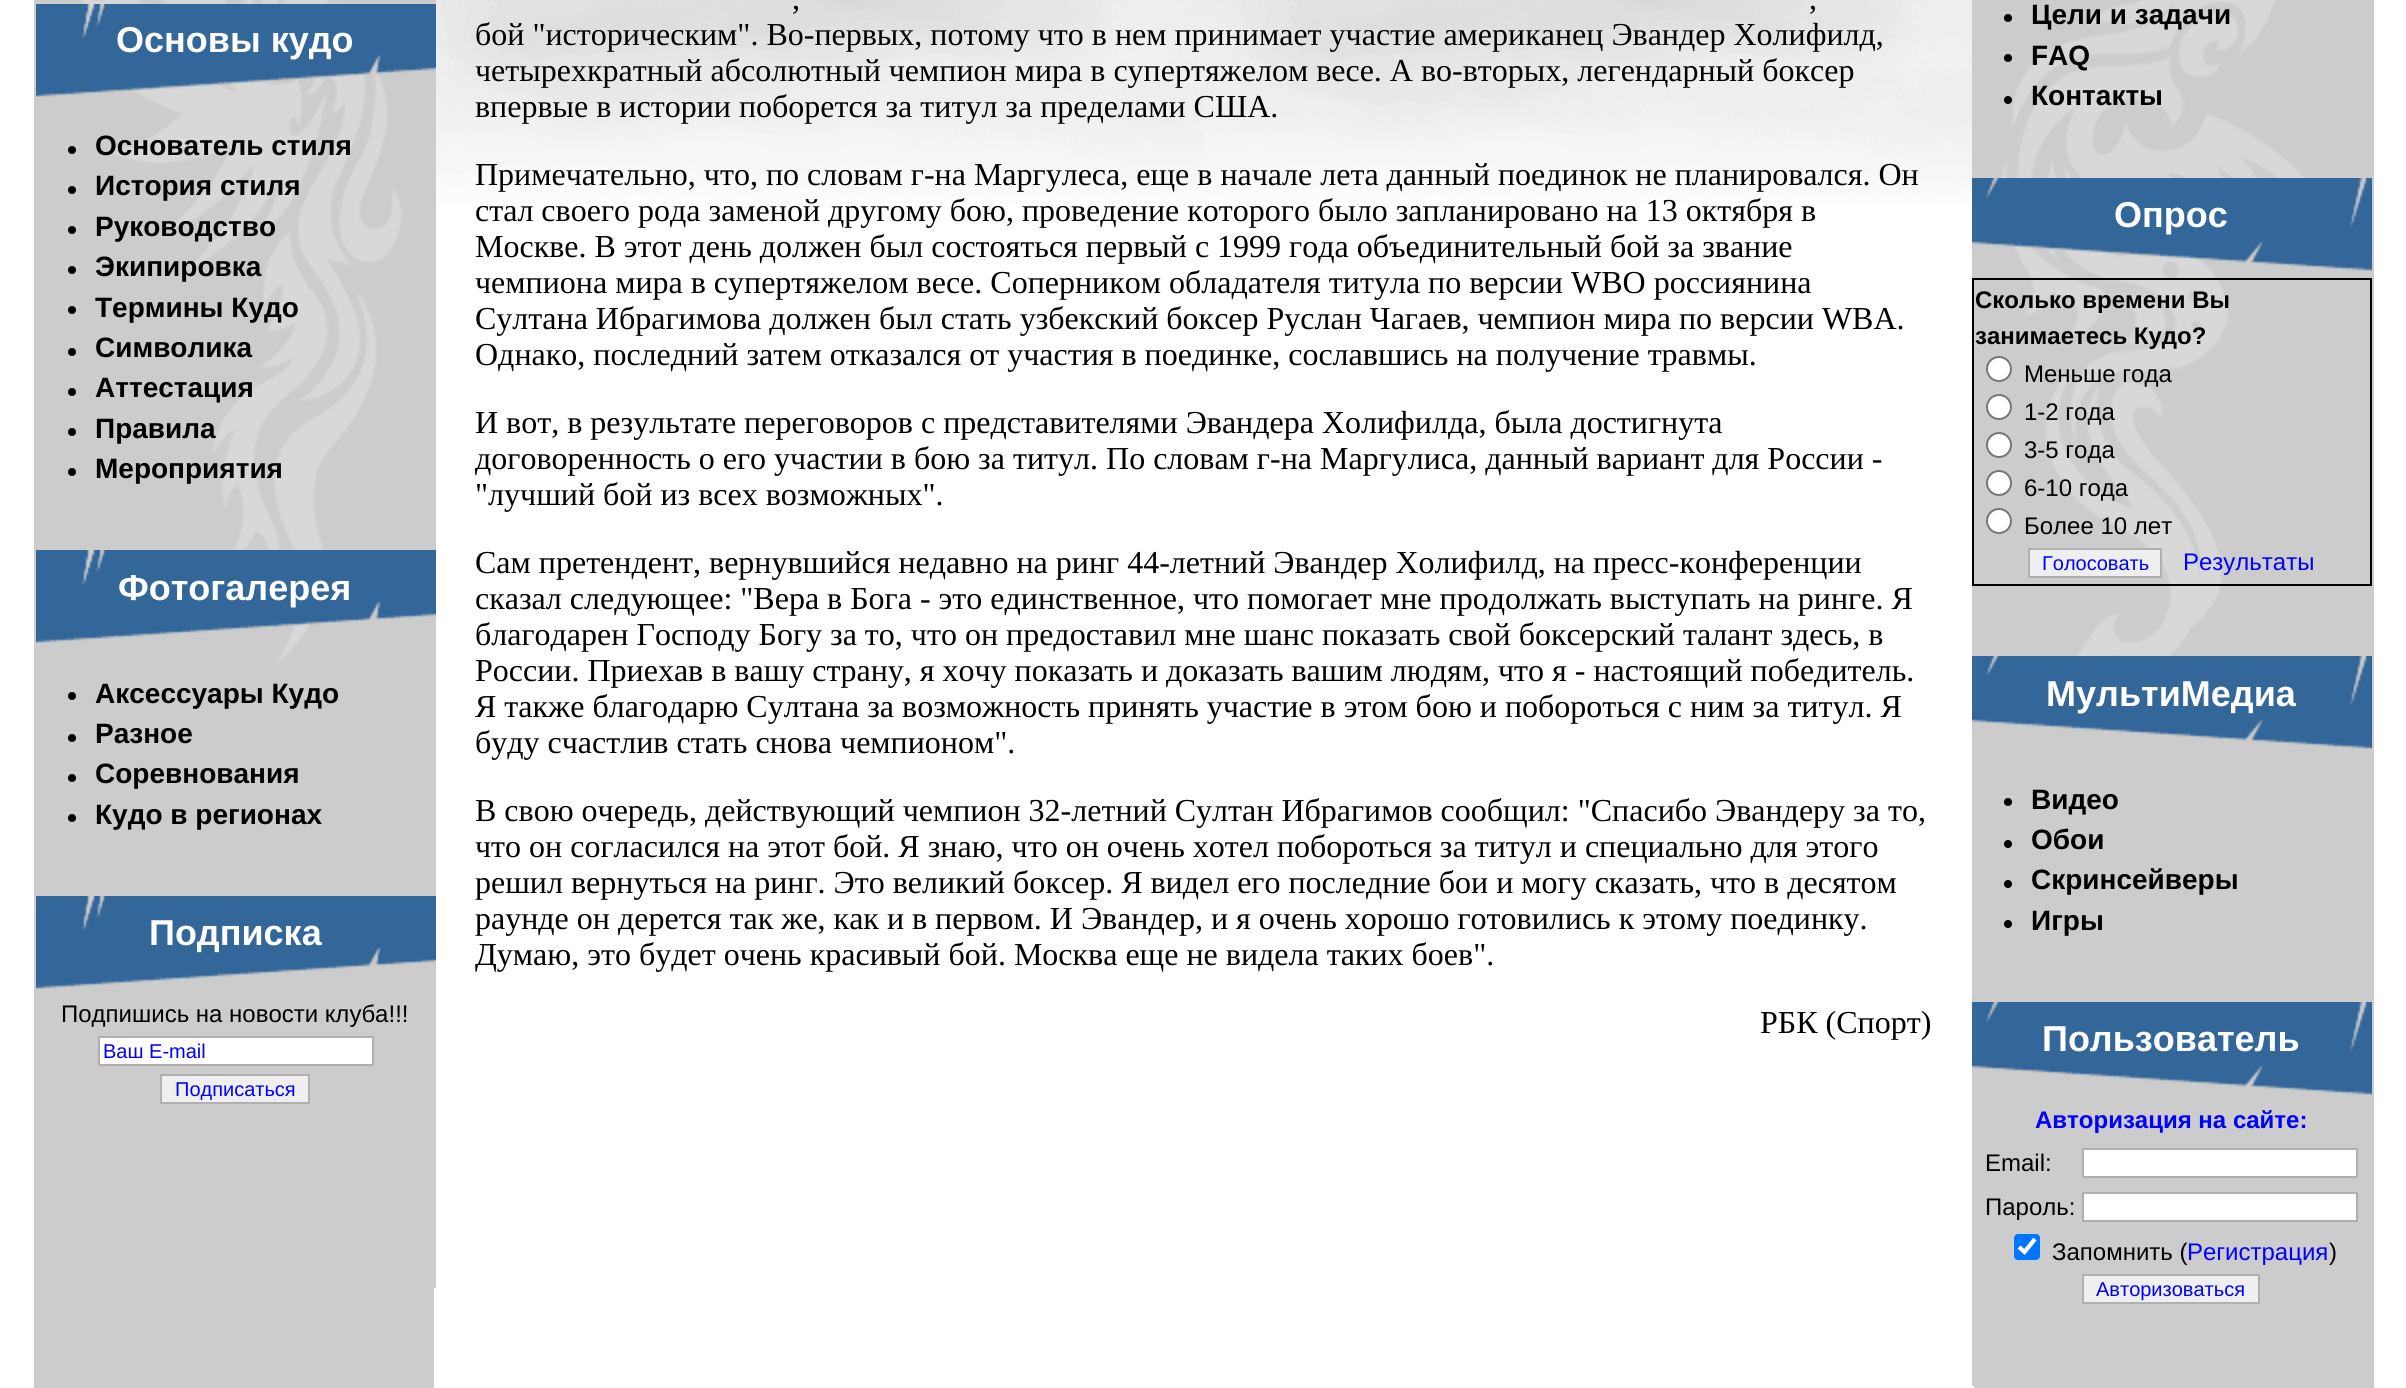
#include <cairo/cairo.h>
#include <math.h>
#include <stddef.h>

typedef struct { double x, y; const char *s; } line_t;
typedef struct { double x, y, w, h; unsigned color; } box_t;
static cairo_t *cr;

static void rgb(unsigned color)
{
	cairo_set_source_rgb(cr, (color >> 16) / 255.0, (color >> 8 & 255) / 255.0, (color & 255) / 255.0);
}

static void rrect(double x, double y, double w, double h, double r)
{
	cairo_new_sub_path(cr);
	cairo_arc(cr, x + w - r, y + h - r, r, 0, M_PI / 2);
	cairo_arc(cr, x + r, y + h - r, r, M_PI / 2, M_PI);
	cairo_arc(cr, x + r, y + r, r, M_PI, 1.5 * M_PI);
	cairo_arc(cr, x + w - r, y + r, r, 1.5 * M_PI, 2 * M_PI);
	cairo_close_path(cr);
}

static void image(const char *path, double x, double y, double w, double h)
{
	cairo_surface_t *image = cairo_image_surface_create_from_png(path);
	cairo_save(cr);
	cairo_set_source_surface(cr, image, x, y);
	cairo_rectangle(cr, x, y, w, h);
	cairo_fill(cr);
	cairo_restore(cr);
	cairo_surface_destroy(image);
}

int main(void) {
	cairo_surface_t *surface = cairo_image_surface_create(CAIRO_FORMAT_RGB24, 2406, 1388);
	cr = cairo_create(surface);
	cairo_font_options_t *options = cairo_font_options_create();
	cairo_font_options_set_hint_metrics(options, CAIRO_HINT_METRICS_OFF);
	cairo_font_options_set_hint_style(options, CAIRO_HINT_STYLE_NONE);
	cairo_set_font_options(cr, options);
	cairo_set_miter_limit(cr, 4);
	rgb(0xffffff);
	cairo_paint(cr);
	image("img/1.png", 436, 0, 1536, 203);
	{
		static const box_t items[] = {
			{1974, 0, 400, 1388, 0xcccccc},
			{34, 0, 400, 1388, 0xcccccc},
			{434, 0, 2, 1288, 0xcccccc},
		};
		for (size_t i = 0; i < sizeof items / sizeof *items; i++) {
			rgb(items[i].color);
			cairo_rectangle(cr, items[i].x, items[i].y, items[i].w, items[i].h);
			cairo_fill(cr);
		}
	}
	image("img/2.png", 82, 0, 320, 664);
	image("img/3.png", 36, 4, 400, 93);
	rgb(0x000000);
	cairo_arc(cr, 72, 150, 4, 0, 2 * M_PI);
	cairo_fill(cr);
	cairo_arc(cr, 72, 190, 4, 0, 2 * M_PI);
	cairo_fill(cr);
	cairo_arc(cr, 72, 230, 4, 0, 2 * M_PI);
	cairo_fill(cr);
	cairo_arc(cr, 72, 270, 4, 0, 2 * M_PI);
	cairo_fill(cr);
	cairo_arc(cr, 72, 310, 4, 0, 2 * M_PI);
	cairo_fill(cr);
	cairo_arc(cr, 72, 352, 4, 0, 2 * M_PI);
	cairo_fill(cr);
	cairo_arc(cr, 72, 392, 4, 0, 2 * M_PI);
	cairo_fill(cr);
	cairo_arc(cr, 72, 432, 4, 0, 2 * M_PI);
	cairo_fill(cr);
	cairo_arc(cr, 72, 472, 4, 0, 2 * M_PI);
	cairo_fill(cr);
	image("img/4.png", 36, 550, 400, 93);
	cairo_arc(cr, 72, 696, 4, 0, 2 * M_PI);
	cairo_fill(cr);
	cairo_arc(cr, 72, 738, 4, 0, 2 * M_PI);
	cairo_fill(cr);
	cairo_arc(cr, 72, 778, 4, 0, 2 * M_PI);
	cairo_fill(cr);
	cairo_arc(cr, 72, 818, 4, 0, 2 * M_PI);
	cairo_fill(cr);
	image("img/5.png", 36, 896, 400, 93);
	rgb(0xffffff);
	cairo_rectangle(cr, 99, 1037, 274, 28);
	cairo_fill_preserve(cr);
	rgb(0xb0b0b0);
	cairo_stroke(cr);
	rgb(0xefefef);
	cairo_rectangle(cr, 161, 1075, 148, 28);
	cairo_fill_preserve(cr);
	rgb(0xb0b0b0);
	cairo_stroke(cr);
	rgb(0xcccccc);
	cairo_rectangle(cr, 1972, 0, 2, 1386);
	cairo_fill(cr);
	image("img/6.png", 2000, 0, 307, 656);
	rgb(0x000000);
	cairo_arc(cr, 2008, 18, 4, 0, 2 * M_PI);
	cairo_fill(cr);
	cairo_arc(cr, 2008, 58, 4, 0, 2 * M_PI);
	cairo_fill(cr);
	cairo_arc(cr, 2008, 100, 4, 0, 2 * M_PI);
	cairo_fill(cr);
	image("img/7.png", 1972, 178, 400, 93);
	{
		static const box_t items[] = {
			{1972, 278, 400, 2, 0x000000},
			{2370, 278, 2, 308, 0x000000},
			{1972, 584, 400, 2, 0x000000},
			{1972, 278, 2, 308, 0x000000},
		};
		for (size_t i = 0; i < sizeof items / sizeof *items; i++) {
			rgb(items[i].color);
			cairo_rectangle(cr, items[i].x, items[i].y, items[i].w, items[i].h);
			cairo_fill(cr);
		}
	}
	rgb(0xffffff);
	cairo_arc(cr, 1999, 369, 12, 0, 2 * M_PI);
	cairo_fill_preserve(cr);
	rgb(0x767676);
	cairo_stroke(cr);
	rgb(0xffffff);
	cairo_arc(cr, 1999, 407, 12, 0, 2 * M_PI);
	cairo_fill_preserve(cr);
	rgb(0x767676);
	cairo_stroke(cr);
	rgb(0xffffff);
	cairo_arc(cr, 1999, 445, 12, 0, 2 * M_PI);
	cairo_fill_preserve(cr);
	rgb(0x767676);
	cairo_stroke(cr);
	rgb(0xffffff);
	cairo_arc(cr, 1999, 483, 12, 0, 2 * M_PI);
	cairo_fill_preserve(cr);
	rgb(0x767676);
	cairo_stroke(cr);
	rgb(0xffffff);
	cairo_arc(cr, 1999, 521, 12, 0, 2 * M_PI);
	cairo_fill_preserve(cr);
	rgb(0x767676);
	cairo_stroke(cr);
	rgb(0xefefef);
	cairo_rectangle(cr, 2029, 549, 132, 28);
	cairo_fill_preserve(cr);
	rgb(0xb0b0b0);
	cairo_stroke(cr);
	image("img/8.png", 1972, 656, 400, 93);
	rgb(0x000000);
	cairo_arc(cr, 2008, 802, 4, 0, 2 * M_PI);
	cairo_fill(cr);
	cairo_arc(cr, 2008, 844, 4, 0, 2 * M_PI);
	cairo_fill(cr);
	cairo_arc(cr, 2008, 884, 4, 0, 2 * M_PI);
	cairo_fill(cr);
	cairo_arc(cr, 2008, 924, 4, 0, 2 * M_PI);
	cairo_fill(cr);
	image("img/8.png", 1972, 1002, 400, 93);
	rgb(0xffffff);
	cairo_rectangle(cr, 2083, 1149, 274, 28);
	cairo_fill_preserve(cr);
	rgb(0xb0b0b0);
	cairo_stroke(cr);
	rgb(0xffffff);
	cairo_rectangle(cr, 2083, 1193, 274, 28);
	cairo_fill_preserve(cr);
	rgb(0xb0b0b0);
	cairo_stroke(cr);
	rgb(0x0075ff);
	rrect(2014, 1234, 26, 26, 4);
	cairo_fill(cr);
	cairo_new_path(cr);
	cairo_move_to(cr, 2019, 1247);
	cairo_line_to(cr, 2024.5, 1252);
	cairo_line_to(cr, 2035, 1239);
	rgb(0xffffff);
	cairo_set_line_width(cr, 4.2);
	cairo_stroke(cr);
	rgb(0xefefef);
	cairo_rectangle(cr, 2083, 1275, 176, 28);
	cairo_fill_preserve(cr);
	rgb(0xb0b0b0);
	cairo_set_line_width(cr, 2);
	cairo_stroke(cr);
	cairo_select_font_face(cr, "Liberation Sans", CAIRO_FONT_SLANT_NORMAL, CAIRO_FONT_WEIGHT_BOLD);
	cairo_set_font_size(cr, 36);
	rgb(0xffffff);
	cairo_move_to(cr, 116, 52);
	cairo_show_text(cr, "Основы кудо");
	cairo_set_font_size(cr, 28);
	rgb(0x000000);
	{
		static const line_t items[] = {
			{95, 155, "Основатель стиля"},
			{95, 195, "История стиля"},
			{95, 236, "Руководство"},
			{95, 276, "Экипировка"},
			{95, 317, "Термины Кудо"},
			{95, 357, "Символика"},
			{95, 397, "Аттестация"},
			{95, 438, "Правила"},
			{95, 478, "Мероприятия"},
		};
		for (size_t i = 0; i < sizeof items / sizeof *items; i++) {
			cairo_move_to(cr, items[i].x, items[i].y);
			cairo_show_text(cr, items[i].s);
		}
	}
	cairo_set_font_size(cr, 36);
	rgb(0xffffff);
	cairo_move_to(cr, 118, 600);
	cairo_show_text(cr, "Фотогалерея");
	cairo_set_font_size(cr, 28);
	rgb(0x000000);
	{
		static const line_t items[] = {
			{95, 703, "Аксессуары Кудо"},
			{95, 743, "Разное"},
			{95, 783, "Соревнования"},
			{95, 824, "Кудо в регионах"},
		};
		for (size_t i = 0; i < sizeof items / sizeof *items; i++) {
			cairo_move_to(cr, items[i].x, items[i].y);
			cairo_show_text(cr, items[i].s);
		}
	}
	cairo_set_font_size(cr, 36);
	rgb(0xffffff);
	cairo_move_to(cr, 149, 945);
	cairo_show_text(cr, "Подписка");
	cairo_select_font_face(cr, "Liberation Sans", CAIRO_FONT_SLANT_NORMAL, CAIRO_FONT_WEIGHT_NORMAL);
	cairo_set_font_size(cr, 24);
	rgb(0x000000);
	cairo_move_to(cr, 61, 1022);
	cairo_show_text(cr, "Подпишись на новости клуба!!!");
	cairo_set_font_size(cr, 20);
	rgb(0x0000ff);
	cairo_move_to(cr, 103, 1058);
	cairo_show_text(cr, "Ваш E-mail");
	cairo_move_to(cr, 175, 1096);
	cairo_show_text(cr, "Подписаться");
	cairo_select_font_face(cr, "Liberation Serif", CAIRO_FONT_SLANT_NORMAL, CAIRO_FONT_WEIGHT_NORMAL);
	cairo_set_font_size(cr, 32);
	rgb(0x000000);
	{
		static const line_t items[] = {
			{792, 9, ","},
			{1809, 9, ","},
			{475, 45, "бой \"историческим\". Во-первых, потому что в нем принимает участие американец Эвандер Холифилд,"},
			{475, 81, "четырехкратный абсолютный чемпион мира в супертяжелом весе. А во-вторых, легендарный боксер"},
			{475, 117, "впервые в истории поборется за титул за пределами США."},
			{475, 185, "Примечательно, что, по словам г-на Маргулеса, еще в начале лета данный поединок не планировался. Он"},
			{475, 221, "стал своего рода заменой другому бою, проведение которого было запланировано на 13 октября в"},
			{475, 257, "Москве. В этот день должен был состояться первый с 1999 года объединительный бой за звание"},
			{475, 293, "чемпиона мира в супертяжелом весе. Соперником обладателя титула по версии WBO россиянина"},
			{475, 329, "Султана Ибрагимова должен был стать узбекский боксер Руслан Чагаев, чемпион мира по версии WBA."},
			{475, 365, "Однако, последний затем отказался от участия в поединке, сославшись на получение травмы."},
			{475, 433, "И вот, в результате переговоров с представителями Эвандера Холифилда, была достигнута"},
			{475, 469, "договоренность о его участии в бою за титул. По словам г-на Маргулиса, данный вариант для России -"},
			{475, 505, "\"лучший бой из всех возможных\"."},
			{475, 573, "Сам претендент, вернувшийся недавно на ринг 44-летний Эвандер Холифилд, на пресс-конференции"},
			{475, 609, "сказал следующее: \"Вера в Бога - это единственное, что помогает мне продолжать выступать на ринге. Я"},
			{475, 645, "благодарен Господу Богу за то, что он предоставил мне шанс показать свой боксерский талант здесь, в"},
			{475, 681, "России. Приехав в вашу страну, я хочу показать и доказать вашим людям, что я - настоящий победитель."},
			{475, 717, "Я также благодарю Султана за возможность принять участие в этом бою и побороться с ним за титул. Я"},
			{475, 753, "буду счастлив стать снова чемпионом\"."},
			{475, 821, "В свою очередь, действующий чемпион 32-летний Султан Ибрагимов сообщил: \"Спасибо Эвандеру за то,"},
			{475, 857, "что он согласился на этот бой. Я знаю, что он очень хотел побороться за титул и специально для этого"},
			{475, 893, "решил вернуться на ринг. Это великий боксер. Я видел его последние бои и могу сказать, что в десятом"},
			{475, 929, "раунде он дерется так же, как и в первом. И Эвандер, и я очень хорошо готовились к этому поединку."},
			{475, 965, "Думаю, это будет очень красивый бой. Москва еще не видела таких боев\"."},
			{1760, 1033, "РБК (Спорт)"},
		};
		for (size_t i = 0; i < sizeof items / sizeof *items; i++) {
			cairo_move_to(cr, items[i].x, items[i].y);
			cairo_show_text(cr, items[i].s);
		}
	}
	cairo_select_font_face(cr, "Liberation Sans", CAIRO_FONT_SLANT_NORMAL, CAIRO_FONT_WEIGHT_BOLD);
	cairo_set_font_size(cr, 28);
	{
		static const line_t items[] = {
			{2031, 24, "Цели и задачи"},
			{2031, 65, "FAQ"},
			{2031, 105, "Контакты"},
		};
		for (size_t i = 0; i < sizeof items / sizeof *items; i++) {
			cairo_move_to(cr, items[i].x, items[i].y);
			cairo_show_text(cr, items[i].s);
		}
	}
	cairo_set_font_size(cr, 36);
	rgb(0xffffff);
	cairo_move_to(cr, 2114, 227);
	cairo_show_text(cr, "Опрос");
	cairo_set_font_size(cr, 24);
	rgb(0x000000);
	cairo_move_to(cr, 1975, 308);
	cairo_show_text(cr, "Сколько времени Вы");
	cairo_move_to(cr, 1975, 344);
	cairo_show_text(cr, "занимаетесь Кудо?");
	cairo_select_font_face(cr, "Liberation Sans", CAIRO_FONT_SLANT_NORMAL, CAIRO_FONT_WEIGHT_NORMAL);
	{
		static const line_t items[] = {
			{2024, 382, "Меньше года"},
			{2024, 420, "1-2 года"},
			{2024, 458, "3-5 года"},
			{2024, 496, "6-10 года"},
			{2024, 534, "Более 10 лет"},
		};
		for (size_t i = 0; i < sizeof items / sizeof *items; i++) {
			cairo_move_to(cr, items[i].x, items[i].y);
			cairo_show_text(cr, items[i].s);
		}
	}
	cairo_set_font_size(cr, 20);
	rgb(0x0000ff);
	cairo_move_to(cr, 2042, 570);
	cairo_show_text(cr, "Голосовать");
	cairo_set_font_size(cr, 24);
	cairo_move_to(cr, 2183, 570);
	cairo_show_text(cr, "Результаты");
	cairo_select_font_face(cr, "Liberation Sans", CAIRO_FONT_SLANT_NORMAL, CAIRO_FONT_WEIGHT_BOLD);
	cairo_set_font_size(cr, 36);
	rgb(0xffffff);
	cairo_move_to(cr, 2046, 706);
	cairo_show_text(cr, "МультиМедиа");
	cairo_set_font_size(cr, 28);
	rgb(0x000000);
	{
		static const line_t items[] = {
			{2031, 809, "Видео"},
			{2031, 849, "Обои"},
			{2031, 889, "Скринсейверы"},
			{2031, 930, "Игры"},
		};
		for (size_t i = 0; i < sizeof items / sizeof *items; i++) {
			cairo_move_to(cr, items[i].x, items[i].y);
			cairo_show_text(cr, items[i].s);
		}
	}
	cairo_set_font_size(cr, 36);
	rgb(0xffffff);
	cairo_move_to(cr, 2042, 1051);
	cairo_show_text(cr, "Пользователь");
	cairo_set_font_size(cr, 24);
	rgb(0x0000ff);
	cairo_move_to(cr, 2035, 1128);
	cairo_show_text(cr, "Авторизация на сайте:");
	cairo_select_font_face(cr, "Liberation Sans", CAIRO_FONT_SLANT_NORMAL, CAIRO_FONT_WEIGHT_NORMAL);
	rgb(0x000000);
	{
		static const line_t items[] = {
			{1985, 1171, "Email:"},
			{1985, 1215, "Пароль:"},
			{2052, 1260, "Запомнить ("},
		};
		for (size_t i = 0; i < sizeof items / sizeof *items; i++) {
			cairo_move_to(cr, items[i].x, items[i].y);
			cairo_show_text(cr, items[i].s);
		}
	}
	rgb(0x0000ff);
	cairo_move_to(cr, 2187, 1260);
	cairo_show_text(cr, "Регистрация");
	rgb(0x000000);
	cairo_move_to(cr, 2329, 1260);
	cairo_show_text(cr, ")");
	cairo_set_font_size(cr, 20);
	rgb(0x0000ff);
	cairo_move_to(cr, 2096, 1296);
	cairo_show_text(cr, "Авторизоваться");
	cairo_surface_write_to_png(surface, "page.png");
	cairo_font_options_destroy(options);
	cairo_destroy(cr);
	cairo_surface_destroy(surface);
	return 0;
}
